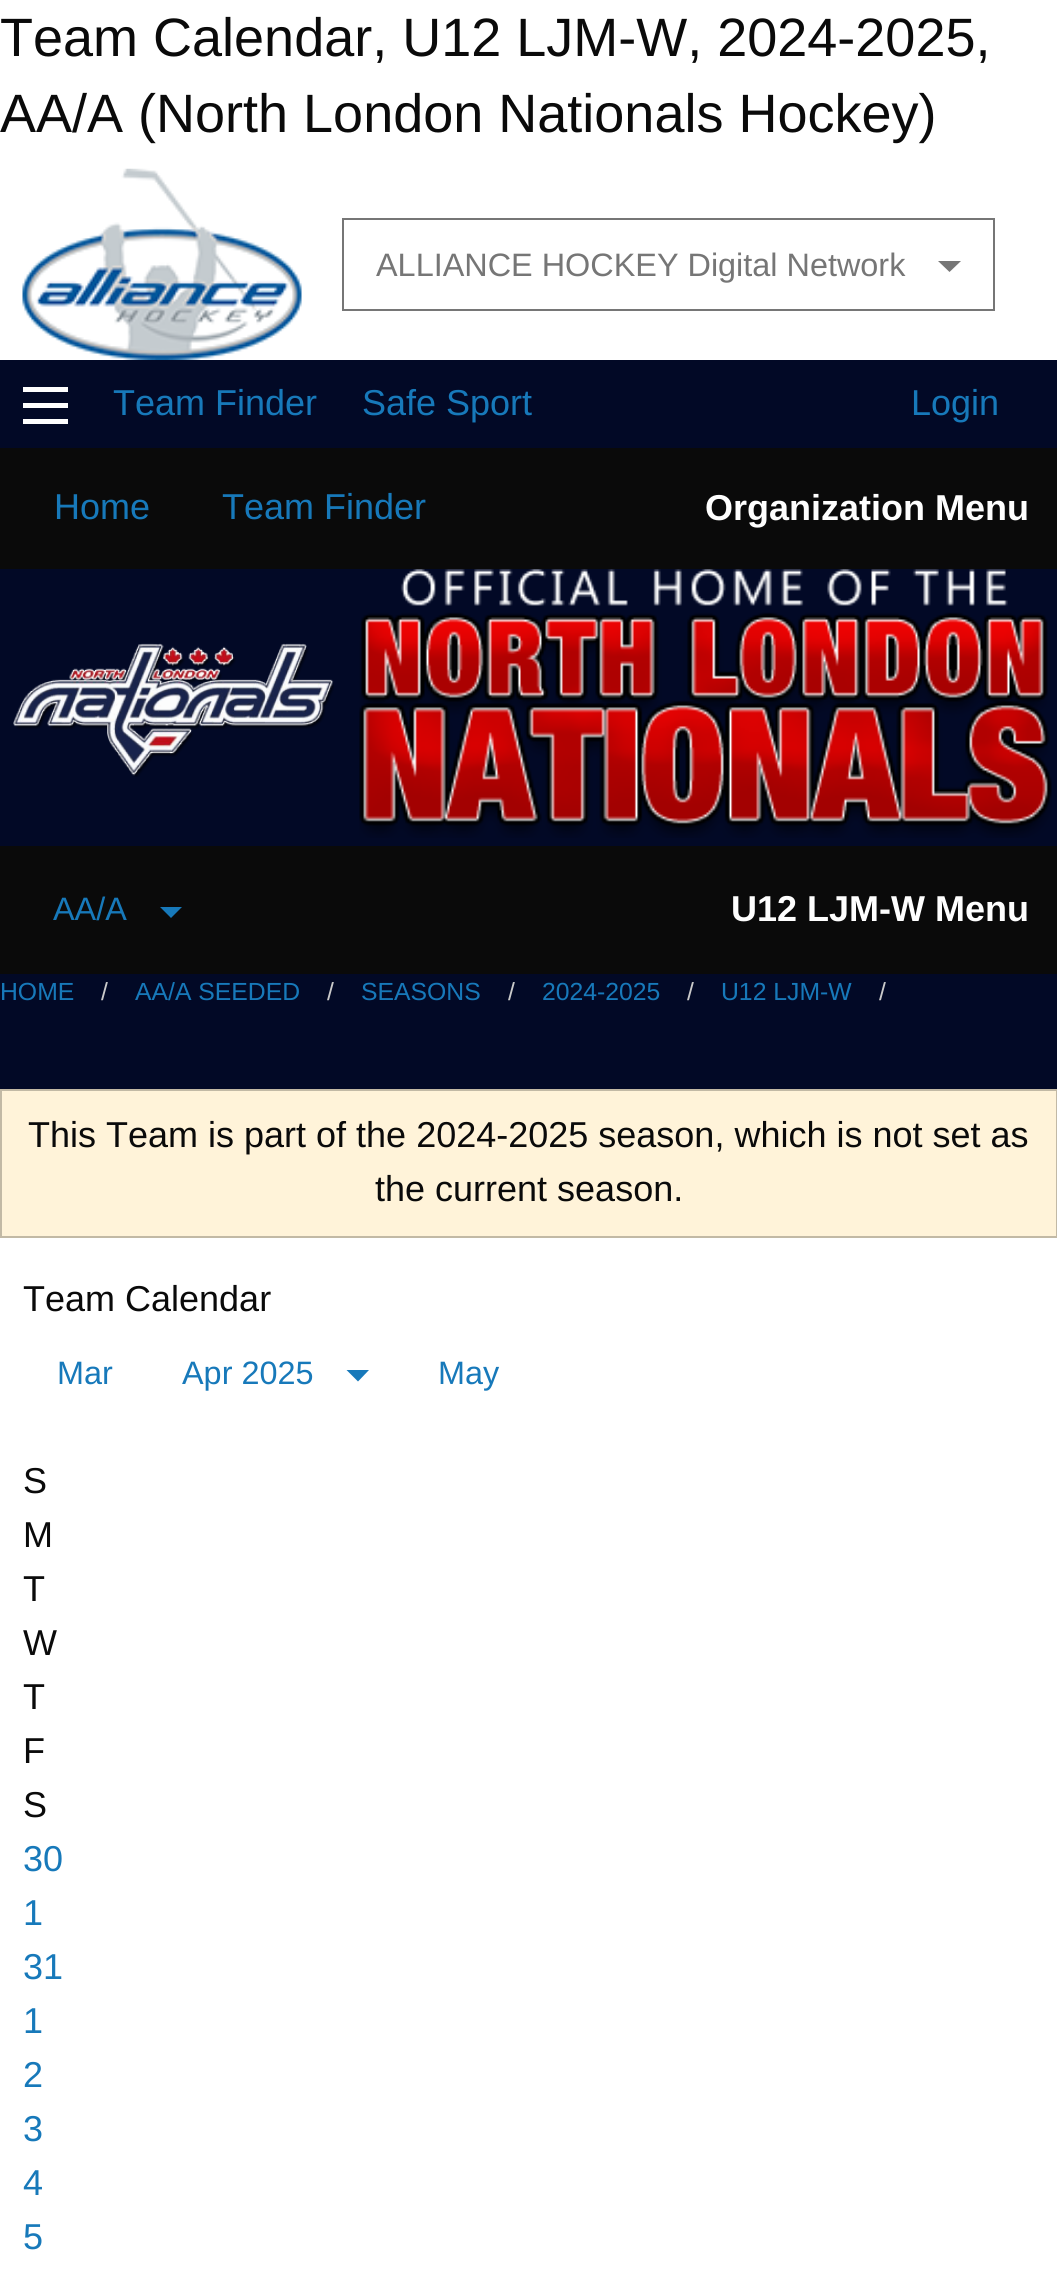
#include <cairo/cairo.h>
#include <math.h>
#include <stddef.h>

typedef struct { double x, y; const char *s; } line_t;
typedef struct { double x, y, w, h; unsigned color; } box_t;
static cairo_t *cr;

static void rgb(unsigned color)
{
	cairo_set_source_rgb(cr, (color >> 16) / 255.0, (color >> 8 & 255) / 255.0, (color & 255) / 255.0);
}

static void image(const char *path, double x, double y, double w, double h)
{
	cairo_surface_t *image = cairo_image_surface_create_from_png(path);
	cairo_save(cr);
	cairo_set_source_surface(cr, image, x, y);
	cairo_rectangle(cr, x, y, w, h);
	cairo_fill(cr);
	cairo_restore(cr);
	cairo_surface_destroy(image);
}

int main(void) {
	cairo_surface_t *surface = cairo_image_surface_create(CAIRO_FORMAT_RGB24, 1057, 2289);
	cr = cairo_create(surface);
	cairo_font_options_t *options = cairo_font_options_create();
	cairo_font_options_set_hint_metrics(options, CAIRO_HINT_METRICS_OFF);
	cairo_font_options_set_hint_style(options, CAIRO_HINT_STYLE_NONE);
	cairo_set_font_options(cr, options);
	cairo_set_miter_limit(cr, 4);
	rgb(0xffffff);
	cairo_paint(cr);
	image("img/1.png", 22, 168, 280, 192);
	cairo_rectangle(cr, 343, 219, 651, 91);
	rgb(0x767676);
	cairo_stroke(cr);
	cairo_new_path(cr);
	cairo_move_to(cr, 938, 261);
	cairo_line_to(cr, 961, 261);
	cairo_line_to(cr, 949.5, 272);
	cairo_close_path(cr);
	cairo_fill(cr);
	{
		static const box_t items[] = {
			{0, 360, 1057, 729, 0x020926},
			{23, 419, 45, 5, 0xfefefe},
			{23, 403, 45, 5, 0xfefefe},
			{23, 387, 45, 5, 0xfefefe},
			{0, 448, 1057, 121, 0x0a0a0a},
		};
		for (size_t i = 0; i < sizeof items / sizeof *items; i++) {
			rgb(items[i].color);
			cairo_rectangle(cr, items[i].x, items[i].y, items[i].w, items[i].h);
			cairo_fill(cr);
		}
	}
	image("img/2.png", 13, 643, 321, 134);
	image("img/3.png", 359, 569, 693, 269);
	cairo_rectangle(cr, 0, 846, 1057, 128);
	cairo_fill(cr);
	rgb(0x1779ba);
	cairo_new_path(cr);
	cairo_move_to(cr, 160, 907);
	cairo_line_to(cr, 182, 907);
	cairo_line_to(cr, 171, 918);
	cairo_close_path(cr);
	cairo_fill(cr);
	rgb(0xfff3d9);
	cairo_rectangle(cr, 1, 1090, 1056, 147);
	cairo_fill_preserve(cr);
	rgb(0xc2b9a5);
	cairo_stroke(cr);
	rgb(0x1779ba);
	cairo_new_path(cr);
	cairo_move_to(cr, 346.5, 1370);
	cairo_line_to(cr, 369, 1370);
	cairo_line_to(cr, 358, 1381.5);
	cairo_close_path(cr);
	cairo_fill(cr);
	cairo_select_font_face(cr, "Liberation Sans", CAIRO_FONT_SLANT_NORMAL, CAIRO_FONT_WEIGHT_NORMAL);
	cairo_set_font_size(cr, 54);
	rgb(0x0a0a0a);
	cairo_move_to(cr, 0, 56);
	cairo_show_text(cr, "Team Calendar, U12 LJM-W, 2024-2025,");
	cairo_move_to(cr, 0, 132);
	cairo_show_text(cr, "AA/A (North London Nationals Hockey)");
	cairo_set_font_size(cr, 32.4);
	rgb(0x767676);
	cairo_move_to(cr, 376, 276);
	cairo_show_text(cr, "ALLIANCE HOCKEY Digital Network");
	cairo_set_font_size(cr, 36);
	rgb(0x1779ba);
	{
		static const line_t items[] = {
			{113, 415, "Team Finder"},
			{362, 415, "Safe Sport"},
			{911, 415, "Login"},
			{54, 519, "Home"},
			{222, 519, "Team Finder"},
		};
		for (size_t i = 0; i < sizeof items / sizeof *items; i++) {
			cairo_move_to(cr, items[i].x, items[i].y);
			cairo_show_text(cr, items[i].s);
		}
	}
	cairo_select_font_face(cr, "Liberation Sans", CAIRO_FONT_SLANT_NORMAL, CAIRO_FONT_WEIGHT_BOLD);
	rgb(0xfefefe);
	cairo_move_to(cr, 705, 520);
	cairo_show_text(cr, "Organization Menu");
	cairo_select_font_face(cr, "Liberation Sans", CAIRO_FONT_SLANT_NORMAL, CAIRO_FONT_WEIGHT_NORMAL);
	cairo_set_font_size(cr, 32.4);
	rgb(0x1779ba);
	cairo_move_to(cr, 53, 920);
	cairo_show_text(cr, "AA/A");
	cairo_select_font_face(cr, "Liberation Sans", CAIRO_FONT_SLANT_NORMAL, CAIRO_FONT_WEIGHT_BOLD);
	cairo_set_font_size(cr, 36);
	rgb(0xfefefe);
	cairo_move_to(cr, 731, 921);
	cairo_show_text(cr, "U12 LJM-W Menu");
	cairo_select_font_face(cr, "Liberation Sans", CAIRO_FONT_SLANT_NORMAL, CAIRO_FONT_WEIGHT_NORMAL);
	cairo_set_font_size(cr, 24.75);
	rgb(0x1779ba);
	cairo_move_to(cr, 0, 1000);
	cairo_show_text(cr, "HOME");
	rgb(0xcacaca);
	cairo_move_to(cr, 101, 1000);
	cairo_show_text(cr, "/");
	rgb(0x1779ba);
	cairo_move_to(cr, 135, 1000);
	cairo_show_text(cr, "AA/A SEEDED");
	rgb(0xcacaca);
	cairo_move_to(cr, 327, 1000);
	cairo_show_text(cr, "/");
	rgb(0x1779ba);
	cairo_move_to(cr, 361, 1000);
	cairo_show_text(cr, "SEASONS");
	rgb(0xcacaca);
	cairo_move_to(cr, 508, 1000);
	cairo_show_text(cr, "/");
	rgb(0x1779ba);
	cairo_move_to(cr, 542, 1000);
	cairo_show_text(cr, "2024-2025");
	rgb(0xcacaca);
	cairo_move_to(cr, 687, 1000);
	cairo_show_text(cr, "/");
	rgb(0x1779ba);
	cairo_move_to(cr, 721, 1000);
	cairo_show_text(cr, "U12 LJM-W");
	rgb(0xcacaca);
	cairo_move_to(cr, 879, 1000);
	cairo_show_text(cr, "/");
	cairo_set_font_size(cr, 36);
	rgb(0x0a0a0a);
	{
		static const line_t items[] = {
			{28, 1147, "This Team is part of the 2024-2025 season, which is not set as"},
			{375, 1201, "the current season."},
			{23, 1311, "Team Calendar"},
		};
		for (size_t i = 0; i < sizeof items / sizeof *items; i++) {
			cairo_move_to(cr, items[i].x, items[i].y);
			cairo_show_text(cr, items[i].s);
		}
	}
	cairo_set_font_size(cr, 32.4);
	rgb(0x1779ba);
	{
		static const line_t items[] = {
			{57, 1384, "Mar"},
			{182, 1384, "Apr 2025"},
			{438, 1384, "May"},
		};
		for (size_t i = 0; i < sizeof items / sizeof *items; i++) {
			cairo_move_to(cr, items[i].x, items[i].y);
			cairo_show_text(cr, items[i].s);
		}
	}
	cairo_set_font_size(cr, 36);
	rgb(0x0a0a0a);
	{
		static const line_t items[] = {
			{23, 1493, "S"},
			{23, 1547, "M"},
			{23, 1601, "T"},
			{23, 1655, "W"},
			{23, 1709, "T"},
			{23, 1763, "F"},
			{23, 1817, "S"},
		};
		for (size_t i = 0; i < sizeof items / sizeof *items; i++) {
			cairo_move_to(cr, items[i].x, items[i].y);
			cairo_show_text(cr, items[i].s);
		}
	}
	rgb(0x1779ba);
	{
		static const line_t items[] = {
			{23, 1871, "30"},
			{23, 1925, "1"},
			{23, 1979, "31"},
			{23, 2033, "1"},
			{23, 2087, "2"},
			{23, 2141, "3"},
			{23, 2195, "4"},
			{23, 2249, "5"},
		};
		for (size_t i = 0; i < sizeof items / sizeof *items; i++) {
			cairo_move_to(cr, items[i].x, items[i].y);
			cairo_show_text(cr, items[i].s);
		}
	}
	cairo_surface_write_to_png(surface, "page.png");
	cairo_font_options_destroy(options);
	cairo_destroy(cr);
	cairo_surface_destroy(surface);
	return 0;
}
